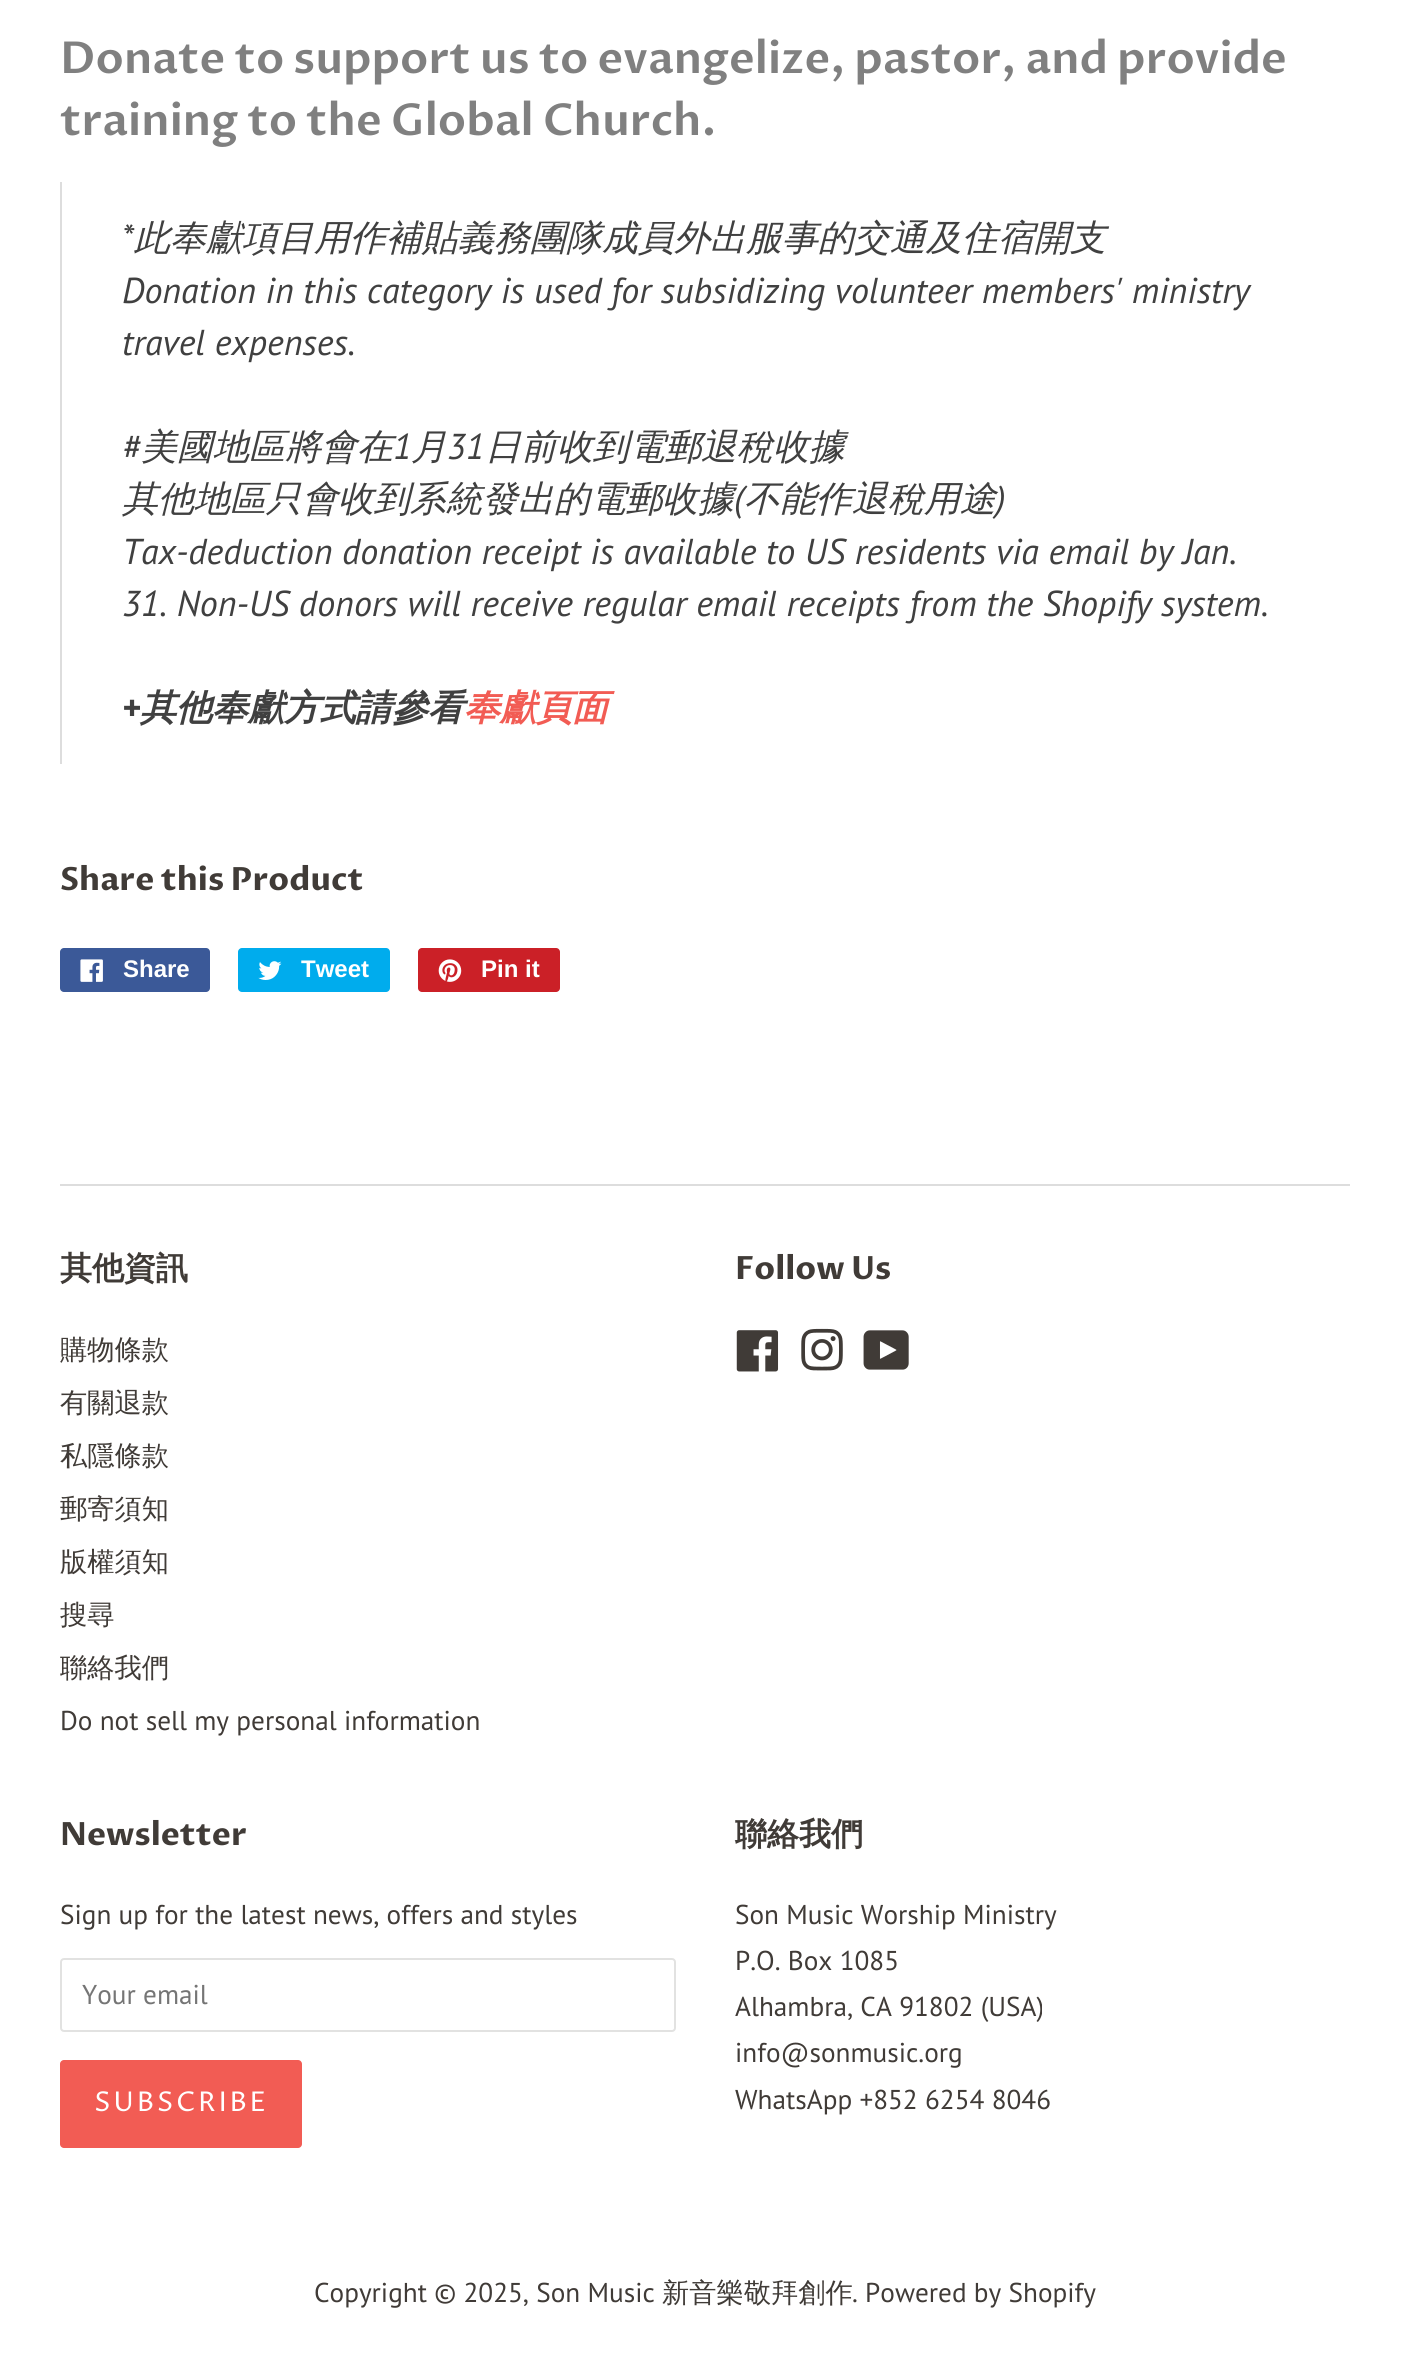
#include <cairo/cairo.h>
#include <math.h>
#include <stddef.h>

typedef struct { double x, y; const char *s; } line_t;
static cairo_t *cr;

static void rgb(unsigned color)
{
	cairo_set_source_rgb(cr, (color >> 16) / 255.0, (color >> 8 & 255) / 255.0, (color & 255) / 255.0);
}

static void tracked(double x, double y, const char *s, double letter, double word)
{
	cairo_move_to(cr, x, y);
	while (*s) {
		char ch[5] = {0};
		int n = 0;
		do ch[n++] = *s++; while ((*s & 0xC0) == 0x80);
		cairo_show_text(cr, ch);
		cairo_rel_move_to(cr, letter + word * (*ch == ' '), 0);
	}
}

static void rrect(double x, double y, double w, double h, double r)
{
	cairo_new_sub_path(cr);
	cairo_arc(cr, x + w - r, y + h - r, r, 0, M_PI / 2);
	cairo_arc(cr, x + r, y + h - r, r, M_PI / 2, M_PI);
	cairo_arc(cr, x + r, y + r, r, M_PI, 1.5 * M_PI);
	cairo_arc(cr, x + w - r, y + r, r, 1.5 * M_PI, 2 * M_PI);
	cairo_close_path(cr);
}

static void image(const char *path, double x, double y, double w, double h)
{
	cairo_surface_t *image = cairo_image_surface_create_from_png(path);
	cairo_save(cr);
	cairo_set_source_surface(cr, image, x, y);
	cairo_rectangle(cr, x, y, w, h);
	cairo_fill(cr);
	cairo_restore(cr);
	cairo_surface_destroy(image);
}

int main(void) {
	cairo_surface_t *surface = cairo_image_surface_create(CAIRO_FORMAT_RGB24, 1410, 2375);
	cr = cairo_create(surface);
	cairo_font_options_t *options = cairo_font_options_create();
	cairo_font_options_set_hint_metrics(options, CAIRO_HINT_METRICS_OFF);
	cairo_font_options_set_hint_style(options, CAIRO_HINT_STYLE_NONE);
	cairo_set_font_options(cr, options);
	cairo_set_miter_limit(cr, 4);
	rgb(0xffffff);
	cairo_paint(cr);
	rgb(0xdddddd);
	cairo_rectangle(cr, 60, 182, 2, 582);
	cairo_fill(cr);
	rgb(0x3b5998);
	rrect(60, 948, 150, 44, 4);
	cairo_fill(cr);
	image("img/1.png", 80, 959, 23, 23);
	rgb(0x00aced);
	rrect(238, 948, 152, 44, 4);
	cairo_fill(cr);
	image("img/2.png", 258, 961, 24, 19);
	rgb(0xcb2027);
	rrect(418, 948, 142, 44, 4);
	cairo_fill(cr);
	image("img/3.png", 438, 959, 24, 23);
	rgb(0xdddddd);
	cairo_rectangle(cr, 60, 1184, 1290, 2);
	cairo_fill(cr);
	image("img/4.png", 736, 1330, 43, 42);
	image("img/5.png", 801, 1328, 42, 43);
	image("img/6.png", 863, 1330, 46, 40);
	rrect(61, 1959, 614, 72, 3);
	rgb(0xe2e2e1);
	cairo_stroke(cr);
	rgb(0xf25c54);
	rrect(60, 2060, 242, 88, 4);
	cairo_fill(cr);
	cairo_select_font_face(cr, "Proza Libre SemiBold", CAIRO_FONT_SLANT_NORMAL, CAIRO_FONT_WEIGHT_NORMAL);
	cairo_set_font_size(cr, 44);
	rgb(0x808080);
	cairo_move_to(cr, 60, 73);
	cairo_show_text(cr, "Donate to support us to evangelize, pastor, and provide");
	cairo_move_to(cr, 60, 135);
	cairo_show_text(cr, "training to the Global Church.");
	cairo_select_font_face(cr, "PT Sans", CAIRO_FONT_SLANT_ITALIC, CAIRO_FONT_WEIGHT_NORMAL);
	cairo_set_font_size(cr, 36);
	rgb(0x404040);
	cairo_move_to(cr, 122, 250);
	cairo_show_text(cr, "*");
	cairo_select_font_face(cr, "WenQuanYi Zen Hei Medium", CAIRO_FONT_SLANT_ITALIC, CAIRO_FONT_WEIGHT_NORMAL);
	cairo_move_to(cr, 134, 250);
	cairo_show_text(cr, "此奉獻項目用作補貼義務團隊成員外出服事的交通及住宿開支");
	cairo_select_font_face(cr, "PT Sans", CAIRO_FONT_SLANT_ITALIC, CAIRO_FONT_WEIGHT_NORMAL);
	{
		static const line_t items[] = {
			{122, 303, "Donation in this category is used for subsidizing volunteer members' ministry"},
			{122, 355, "travel expenses."},
			{122, 459, "#"},
		};
		for (size_t i = 0; i < sizeof items / sizeof *items; i++) {
			cairo_move_to(cr, items[i].x, items[i].y);
			cairo_show_text(cr, items[i].s);
		}
	}
	cairo_select_font_face(cr, "WenQuanYi Zen Hei Medium", CAIRO_FONT_SLANT_ITALIC, CAIRO_FONT_WEIGHT_NORMAL);
	cairo_move_to(cr, 141, 459);
	cairo_show_text(cr, "美國地區將會在");
	cairo_select_font_face(cr, "PT Sans", CAIRO_FONT_SLANT_ITALIC, CAIRO_FONT_WEIGHT_NORMAL);
	cairo_move_to(cr, 393, 459);
	cairo_show_text(cr, "1");
	cairo_select_font_face(cr, "WenQuanYi Zen Hei Medium", CAIRO_FONT_SLANT_ITALIC, CAIRO_FONT_WEIGHT_NORMAL);
	cairo_move_to(cr, 411, 459);
	cairo_show_text(cr, "月");
	cairo_select_font_face(cr, "PT Sans", CAIRO_FONT_SLANT_ITALIC, CAIRO_FONT_WEIGHT_NORMAL);
	cairo_move_to(cr, 447, 459);
	cairo_show_text(cr, "31");
	cairo_select_font_face(cr, "WenQuanYi Zen Hei Medium", CAIRO_FONT_SLANT_ITALIC, CAIRO_FONT_WEIGHT_NORMAL);
	cairo_move_to(cr, 485, 459);
	cairo_show_text(cr, "日前收到電郵退稅收據");
	cairo_move_to(cr, 122, 511);
	cairo_show_text(cr, "其他地區只會收到系統發出的電郵收據");
	cairo_select_font_face(cr, "PT Sans", CAIRO_FONT_SLANT_ITALIC, CAIRO_FONT_WEIGHT_NORMAL);
	cairo_move_to(cr, 734, 511);
	cairo_show_text(cr, "(");
	cairo_select_font_face(cr, "WenQuanYi Zen Hei Medium", CAIRO_FONT_SLANT_ITALIC, CAIRO_FONT_WEIGHT_NORMAL);
	cairo_move_to(cr, 744, 511);
	cairo_show_text(cr, "不能作退稅用途");
	cairo_select_font_face(cr, "PT Sans", CAIRO_FONT_SLANT_ITALIC, CAIRO_FONT_WEIGHT_NORMAL);
	{
		static const line_t items[] = {
			{996, 511, ")"},
			{122, 564, "Tax-deduction donation receipt is available to US residents via email by Jan."},
			{122, 616, "31. Non-US donors will receive regular email receipts from the Shopify system."},
		};
		for (size_t i = 0; i < sizeof items / sizeof *items; i++) {
			cairo_move_to(cr, items[i].x, items[i].y);
			cairo_show_text(cr, items[i].s);
		}
	}
	cairo_select_font_face(cr, "PT Sans", CAIRO_FONT_SLANT_ITALIC, CAIRO_FONT_WEIGHT_BOLD);
	cairo_move_to(cr, 122, 720);
	cairo_show_text(cr, "+");
	cairo_select_font_face(cr, "WenQuanYi Zen Hei", CAIRO_FONT_SLANT_ITALIC, CAIRO_FONT_WEIGHT_BOLD);
	cairo_move_to(cr, 140, 720);
	cairo_show_text(cr, "其他奉獻方式請參看");
	rgb(0xf25c54);
	cairo_move_to(cr, 464, 720);
	cairo_show_text(cr, "奉獻頁面");
	cairo_select_font_face(cr, "Proza Libre", CAIRO_FONT_SLANT_NORMAL, CAIRO_FONT_WEIGHT_BOLD);
	cairo_set_font_size(cr, 32);
	rgb(0x403b37);
	cairo_move_to(cr, 60, 890);
	cairo_show_text(cr, "Share this Product");
	cairo_select_font_face(cr, "Liberation Sans", CAIRO_FONT_SLANT_NORMAL, CAIRO_FONT_WEIGHT_BOLD);
	cairo_set_font_size(cr, 24);
	rgb(0xffffff);
	{
		static const line_t items[] = {
			{123, 977, "Share"},
			{301, 977, "Tweet"},
			{481, 977, "Pin it"},
		};
		for (size_t i = 0; i < sizeof items / sizeof *items; i++) {
			cairo_move_to(cr, items[i].x, items[i].y);
			cairo_show_text(cr, items[i].s);
		}
	}
	cairo_select_font_face(cr, "WenQuanYi Zen Hei", CAIRO_FONT_SLANT_NORMAL, CAIRO_FONT_WEIGHT_BOLD);
	cairo_set_font_size(cr, 32);
	rgb(0x403b37);
	cairo_move_to(cr, 60, 1279);
	cairo_show_text(cr, "其他資訊");
	cairo_select_font_face(cr, "WenQuanYi Zen Hei Medium", CAIRO_FONT_SLANT_NORMAL, CAIRO_FONT_WEIGHT_NORMAL);
	cairo_set_font_size(cr, 27.25);
	{
		static const line_t items[] = {
			{60, 1359, "購物條款"},
			{60, 1412, "有關退款"},
			{60, 1465, "私隱條款"},
			{60, 1518, "郵寄須知"},
			{60, 1571, "版權須知"},
			{60, 1624, "搜尋"},
			{60, 1677, "聯絡我們"},
		};
		for (size_t i = 0; i < sizeof items / sizeof *items; i++) {
			cairo_move_to(cr, items[i].x, items[i].y);
			cairo_show_text(cr, items[i].s);
		}
	}
	cairo_select_font_face(cr, "PT Sans", CAIRO_FONT_SLANT_NORMAL, CAIRO_FONT_WEIGHT_NORMAL);
	cairo_move_to(cr, 60, 1730);
	cairo_show_text(cr, "Do not sell my personal information");
	cairo_select_font_face(cr, "Proza Libre", CAIRO_FONT_SLANT_NORMAL, CAIRO_FONT_WEIGHT_BOLD);
	cairo_set_font_size(cr, 32);
	cairo_move_to(cr, 735, 1279);
	cairo_show_text(cr, "Follow Us");
	cairo_move_to(cr, 60, 1845);
	cairo_show_text(cr, "Newsletter");
	cairo_select_font_face(cr, "PT Sans", CAIRO_FONT_SLANT_NORMAL, CAIRO_FONT_WEIGHT_NORMAL);
	cairo_set_font_size(cr, 27.25);
	cairo_move_to(cr, 60, 1924);
	cairo_show_text(cr, "Sign up for the latest news, offers and styles");
	rgb(0x757575);
	cairo_move_to(cr, 82, 2004);
	cairo_show_text(cr, "Your email");
	cairo_select_font_face(cr, "Proza Libre", CAIRO_FONT_SLANT_NORMAL, CAIRO_FONT_WEIGHT_NORMAL);
	rgb(0xffffff);
	tracked(94, 2111, "SUBSCRIBE", 2.75, 0);
	cairo_select_font_face(cr, "WenQuanYi Zen Hei", CAIRO_FONT_SLANT_NORMAL, CAIRO_FONT_WEIGHT_BOLD);
	cairo_set_font_size(cr, 32);
	rgb(0x403b37);
	cairo_move_to(cr, 735, 1845);
	cairo_show_text(cr, "聯絡我們");
	cairo_select_font_face(cr, "PT Sans", CAIRO_FONT_SLANT_NORMAL, CAIRO_FONT_WEIGHT_NORMAL);
	cairo_set_font_size(cr, 27.25);
	{
		static const line_t items[] = {
			{735, 1924, "Son Music Worship Ministry"},
			{735, 1970, "P.O. Box 1085"},
			{735, 2016, "Alhambra, CA 91802 (USA)"},
			{735, 2062, "info@sonmusic.org"},
			{735, 2109, "WhatsApp +852 6254 8046"},
			{314, 2302, "Copyright © 2025, Son Music"},
		};
		for (size_t i = 0; i < sizeof items / sizeof *items; i++) {
			cairo_move_to(cr, items[i].x, items[i].y);
			cairo_show_text(cr, items[i].s);
		}
	}
	cairo_select_font_face(cr, "WenQuanYi Zen Hei Medium", CAIRO_FONT_SLANT_NORMAL, CAIRO_FONT_WEIGHT_NORMAL);
	cairo_move_to(cr, 662, 2302);
	cairo_show_text(cr, "新音樂敬拜創作");
	cairo_select_font_face(cr, "PT Sans", CAIRO_FONT_SLANT_NORMAL, CAIRO_FONT_WEIGHT_NORMAL);
	cairo_move_to(cr, 852, 2302);
	cairo_show_text(cr, ". Powered by Shopify");
	cairo_surface_write_to_png(surface, "page.png");
	cairo_font_options_destroy(options);
	cairo_destroy(cr);
	cairo_surface_destroy(surface);
	return 0;
}
